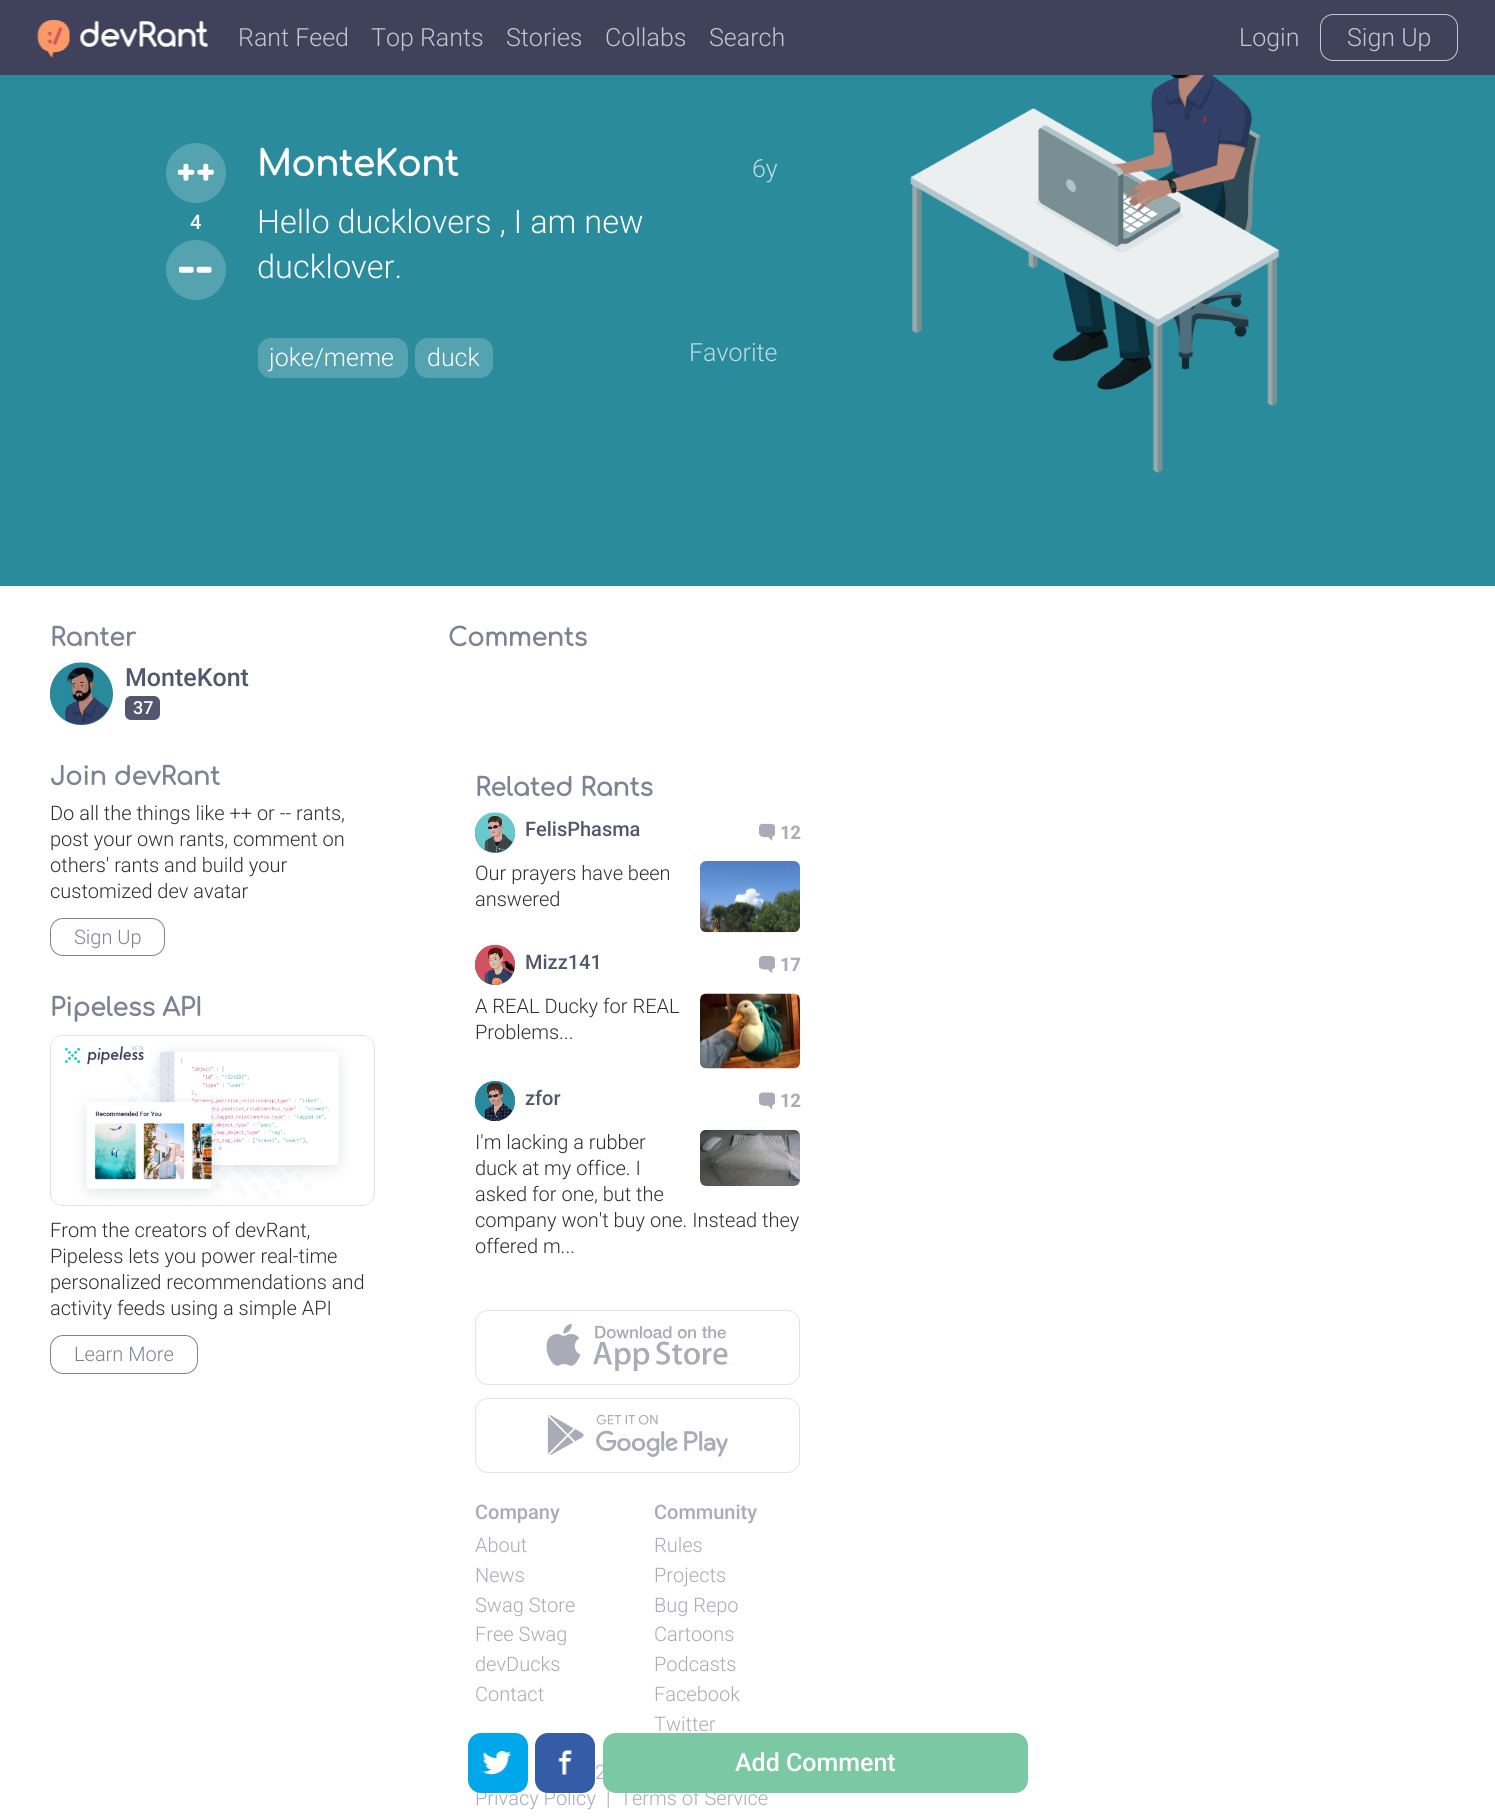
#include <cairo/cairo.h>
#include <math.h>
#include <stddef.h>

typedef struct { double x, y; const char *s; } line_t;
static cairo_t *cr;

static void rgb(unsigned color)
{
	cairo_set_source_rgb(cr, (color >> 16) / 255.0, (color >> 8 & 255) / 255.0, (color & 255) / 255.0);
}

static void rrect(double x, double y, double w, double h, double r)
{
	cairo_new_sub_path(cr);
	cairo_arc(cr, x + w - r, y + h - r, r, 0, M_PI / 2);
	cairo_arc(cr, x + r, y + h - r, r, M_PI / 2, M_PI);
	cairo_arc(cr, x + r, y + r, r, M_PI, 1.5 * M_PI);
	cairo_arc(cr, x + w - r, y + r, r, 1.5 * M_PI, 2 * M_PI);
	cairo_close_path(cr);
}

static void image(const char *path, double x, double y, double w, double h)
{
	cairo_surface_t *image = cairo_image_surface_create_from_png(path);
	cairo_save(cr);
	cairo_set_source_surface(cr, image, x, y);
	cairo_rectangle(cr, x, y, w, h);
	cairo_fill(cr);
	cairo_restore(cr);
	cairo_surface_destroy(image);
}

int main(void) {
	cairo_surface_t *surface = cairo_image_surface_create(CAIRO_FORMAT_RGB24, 1495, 1817);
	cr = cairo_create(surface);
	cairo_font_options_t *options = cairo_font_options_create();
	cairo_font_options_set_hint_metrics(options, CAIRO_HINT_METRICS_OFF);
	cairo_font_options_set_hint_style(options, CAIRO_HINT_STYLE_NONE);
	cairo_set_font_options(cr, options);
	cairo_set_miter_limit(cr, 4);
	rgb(0xffffff);
	cairo_paint(cr);
	rgb(0x40415a);
	cairo_rectangle(cr, 0, 0, 1495, 75);
	cairo_fill(cr);
	image("img/1.png", 37, 20, 33, 38);
	image("img/2.png", 47, 27, 16, 18);
	image("img/3.png", 79, 21, 129, 26);
	rrect(1320.5, 14.5, 137, 46, 12.5);
	rgb(0xc6c6ce);
	cairo_set_line_width(cr, 1);
	cairo_stroke(cr);
	rgb(0x2a8b9d);
	cairo_rectangle(cr, 0, 75, 1495, 511);
	cairo_fill(cr);
	rgb(0x55a2b1);
	cairo_arc(cr, 196, 173, 30, 0, 2 * M_PI);
	cairo_fill(cr);
	image("img/4.png", 177, 163, 37, 18);
	cairo_arc(cr, 196, 270, 30, 0, 2 * M_PI);
	cairo_fill(cr);
	image("img/5.png", 179, 266, 33, 7);
	rrect(258, 338, 150, 40, 13);
	cairo_fill(cr);
	rrect(415, 338, 78, 40, 13);
	cairo_fill(cr);
	image("img/6.png", 910, 75, 370, 398);
	rgb(0x2a8b9d);
	rrect(50, 663, 63, 62, 31);
	cairo_fill(cr);
	image("img/7.png", 50, 662, 63, 63);
	rgb(0x54556e);
	rrect(125, 696, 35, 24, 6);
	cairo_fill(cr);
	rrect(50.5, 918.5, 114, 37, 12.5);
	rgb(0x808196);
	cairo_stroke(cr);
	rrect(50.5, 1035.5, 324, 170, 12.5);
	rgb(0xe3e3e3);
	cairo_stroke(cr);
	image("img/8.png", 51, 1036, 323, 168);
	rrect(50.5, 1335.5, 147, 38, 12.5);
	rgb(0x808196);
	cairo_stroke(cr);
	rgb(0x2a8b9d);
	cairo_arc(cr, 495, 833, 20, 0, 2 * M_PI);
	cairo_fill(cr);
	image("img/9.png", 475, 812, 40, 41);
	image("img/10.png", 759, 823, 16, 18);
	image("img/11.png", 700, 861, 100, 72);
	cairo_arc(cr, 495, 965, 20, 0, 2 * M_PI);
	cairo_fill(cr);
	image("img/12.png", 475, 944, 40, 41);
	image("img/13.png", 759, 956, 16, 17);
	image("img/14.png", 700, 993, 100, 76);
	cairo_arc(cr, 495, 1101, 20, 0, 2 * M_PI);
	cairo_fill(cr);
	image("img/15.png", 475, 1081, 40, 40);
	image("img/16.png", 759, 1092, 16, 18);
	image("img/17.png", 700, 1129, 100, 57);
	rrect(475.5, 1310.5, 324, 74, 12.5);
	rgb(0xe3e3e3);
	cairo_stroke(cr);
	image("img/18.png", 546, 1324, 182, 47);
	rrect(475.5, 1398.5, 324, 74, 12.5);
	cairo_stroke(cr);
	image("img/19.png", 547, 1414, 181, 43);
	cairo_select_font_face(cr, "Roboto Light", CAIRO_FONT_SLANT_NORMAL, CAIRO_FONT_WEIGHT_NORMAL);
	cairo_set_font_size(cr, 25);
	rgb(0xc6c6ce);
	{
		static const line_t items[] = {
			{238, 46, "Rant Feed"},
			{371, 46, "Top Rants"},
			{506, 46, "Stories"},
			{605, 46, "Collabs"},
			{709, 46, "Search"},
			{1239, 46, "Login"},
			{1347, 46, "Sign Up"},
		};
		for (size_t i = 0; i < sizeof items / sizeof *items; i++) {
			cairo_move_to(cr, items[i].x, items[i].y);
			cairo_show_text(cr, items[i].s);
		}
	}
	cairo_select_font_face(cr, "Roboto Medium", CAIRO_FONT_SLANT_NORMAL, CAIRO_FONT_WEIGHT_NORMAL);
	cairo_set_font_size(cr, 20);
	rgb(0xffffff);
	cairo_move_to(cr, 190, 229);
	cairo_show_text(cr, "4");
	cairo_select_font_face(cr, "Comfortaa", CAIRO_FONT_SLANT_NORMAL, CAIRO_FONT_WEIGHT_BOLD);
	cairo_set_font_size(cr, 35);
	cairo_move_to(cr, 257, 176);
	cairo_show_text(cr, "MonteKont");
	cairo_select_font_face(cr, "Roboto Light", CAIRO_FONT_SLANT_NORMAL, CAIRO_FONT_WEIGHT_NORMAL);
	cairo_set_font_size(cr, 25);
	rgb(0xbfdce2);
	cairo_move_to(cr, 752, 177);
	cairo_show_text(cr, "6y");
	cairo_set_font_size(cr, 32.5);
	rgb(0xffffff);
	cairo_move_to(cr, 257, 233);
	cairo_show_text(cr, "Hello ducklovers , I am new");
	cairo_move_to(cr, 257, 278);
	cairo_show_text(cr, "ducklover.");
	cairo_set_font_size(cr, 25);
	cairo_move_to(cr, 269, 366);
	cairo_show_text(cr, "joke/meme");
	cairo_move_to(cr, 427, 366);
	cairo_show_text(cr, "duck");
	rgb(0xbfdce2);
	cairo_move_to(cr, 689, 361);
	cairo_show_text(cr, "Favorite");
	cairo_select_font_face(cr, "Comfortaa", CAIRO_FONT_SLANT_NORMAL, CAIRO_FONT_WEIGHT_BOLD);
	rgb(0x808196);
	cairo_move_to(cr, 50, 646);
	cairo_show_text(cr, "Ranter");
	cairo_select_font_face(cr, "Roboto Medium", CAIRO_FONT_SLANT_NORMAL, CAIRO_FONT_WEIGHT_NORMAL);
	rgb(0x54556e);
	cairo_move_to(cr, 125, 686);
	cairo_show_text(cr, "MonteKont");
	cairo_set_font_size(cr, 18);
	rgb(0xffffff);
	cairo_move_to(cr, 133, 714);
	cairo_show_text(cr, "37");
	cairo_select_font_face(cr, "Comfortaa", CAIRO_FONT_SLANT_NORMAL, CAIRO_FONT_WEIGHT_BOLD);
	cairo_set_font_size(cr, 25);
	rgb(0x808196);
	cairo_move_to(cr, 50, 785);
	cairo_show_text(cr, "Join devRant");
	cairo_select_font_face(cr, "Roboto Light", CAIRO_FONT_SLANT_NORMAL, CAIRO_FONT_WEIGHT_NORMAL);
	cairo_set_font_size(cr, 20);
	rgb(0x2f2f32);
	{
		static const line_t items[] = {
			{50, 820, "Do all the things like ++ or -- rants,"},
			{50, 846, "post your own rants, comment on"},
			{50, 872, "others' rants and build your"},
			{50, 898, "customized dev avatar"},
		};
		for (size_t i = 0; i < sizeof items / sizeof *items; i++) {
			cairo_move_to(cr, items[i].x, items[i].y);
			cairo_show_text(cr, items[i].s);
		}
	}
	rgb(0x808196);
	cairo_move_to(cr, 74, 944);
	cairo_show_text(cr, "Sign Up");
	cairo_select_font_face(cr, "Comfortaa", CAIRO_FONT_SLANT_NORMAL, CAIRO_FONT_WEIGHT_BOLD);
	cairo_set_font_size(cr, 25);
	cairo_move_to(cr, 50, 1016);
	cairo_show_text(cr, "Pipeless API");
	cairo_select_font_face(cr, "Roboto Light", CAIRO_FONT_SLANT_NORMAL, CAIRO_FONT_WEIGHT_NORMAL);
	cairo_set_font_size(cr, 20);
	rgb(0x2f2f32);
	{
		static const line_t items[] = {
			{50, 1237, "From the creators of devRant,"},
			{50, 1263, "Pipeless lets you power real-time"},
			{50, 1289, "personalized recommendations and"},
			{50, 1315, "activity feeds using a simple API"},
		};
		for (size_t i = 0; i < sizeof items / sizeof *items; i++) {
			cairo_move_to(cr, items[i].x, items[i].y);
			cairo_show_text(cr, items[i].s);
		}
	}
	rgb(0x808196);
	cairo_move_to(cr, 74, 1361);
	cairo_show_text(cr, "Learn More");
	cairo_select_font_face(cr, "Comfortaa", CAIRO_FONT_SLANT_NORMAL, CAIRO_FONT_WEIGHT_BOLD);
	cairo_set_font_size(cr, 25);
	cairo_move_to(cr, 448, 646);
	cairo_show_text(cr, "Comments");
	cairo_move_to(cr, 475, 796);
	cairo_show_text(cr, "Related Rants");
	cairo_select_font_face(cr, "Roboto Medium", CAIRO_FONT_SLANT_NORMAL, CAIRO_FONT_WEIGHT_NORMAL);
	cairo_set_font_size(cr, 20);
	rgb(0x54556e);
	cairo_move_to(cr, 525, 836);
	cairo_show_text(cr, "FelisPhasma");
	cairo_select_font_face(cr, "Roboto", CAIRO_FONT_SLANT_NORMAL, CAIRO_FONT_WEIGHT_BOLD);
	cairo_set_font_size(cr, 18);
	rgb(0xaaaab8);
	cairo_move_to(cr, 780, 839);
	cairo_show_text(cr, "12");
	cairo_select_font_face(cr, "Roboto Light", CAIRO_FONT_SLANT_NORMAL, CAIRO_FONT_WEIGHT_NORMAL);
	cairo_set_font_size(cr, 20);
	rgb(0x2f2f32);
	cairo_move_to(cr, 475, 880);
	cairo_show_text(cr, "Our prayers have been");
	cairo_move_to(cr, 475, 906);
	cairo_show_text(cr, "answered");
	cairo_select_font_face(cr, "Roboto Medium", CAIRO_FONT_SLANT_NORMAL, CAIRO_FONT_WEIGHT_NORMAL);
	rgb(0x54556e);
	cairo_move_to(cr, 525, 969);
	cairo_show_text(cr, "Mizz141");
	cairo_select_font_face(cr, "Roboto", CAIRO_FONT_SLANT_NORMAL, CAIRO_FONT_WEIGHT_BOLD);
	cairo_set_font_size(cr, 18);
	rgb(0xaaaab8);
	cairo_move_to(cr, 780, 971);
	cairo_show_text(cr, "17");
	cairo_select_font_face(cr, "Roboto Light", CAIRO_FONT_SLANT_NORMAL, CAIRO_FONT_WEIGHT_NORMAL);
	cairo_set_font_size(cr, 20);
	rgb(0x2f2f32);
	cairo_move_to(cr, 475, 1013);
	cairo_show_text(cr, "A REAL Ducky for REAL");
	cairo_move_to(cr, 475, 1039);
	cairo_show_text(cr, "Problems...");
	cairo_select_font_face(cr, "Roboto Medium", CAIRO_FONT_SLANT_NORMAL, CAIRO_FONT_WEIGHT_NORMAL);
	rgb(0x54556e);
	cairo_move_to(cr, 525, 1105);
	cairo_show_text(cr, "zfor");
	cairo_select_font_face(cr, "Roboto", CAIRO_FONT_SLANT_NORMAL, CAIRO_FONT_WEIGHT_BOLD);
	cairo_set_font_size(cr, 18);
	rgb(0xaaaab8);
	cairo_move_to(cr, 780, 1107);
	cairo_show_text(cr, "12");
	cairo_select_font_face(cr, "Roboto Light", CAIRO_FONT_SLANT_NORMAL, CAIRO_FONT_WEIGHT_NORMAL);
	cairo_set_font_size(cr, 20);
	rgb(0x2f2f32);
	{
		static const line_t items[] = {
			{475, 1149, "I'm lacking a rubber"},
			{475, 1175, "duck at my office. I"},
			{475, 1201, "asked for one, but the"},
			{475, 1227, "company won't buy one. Instead they"},
			{475, 1253, "offered m..."},
		};
		for (size_t i = 0; i < sizeof items / sizeof *items; i++) {
			cairo_move_to(cr, items[i].x, items[i].y);
			cairo_show_text(cr, items[i].s);
		}
	}
	cairo_select_font_face(cr, "Roboto Medium", CAIRO_FONT_SLANT_NORMAL, CAIRO_FONT_WEIGHT_NORMAL);
	rgb(0xaaaab8);
	cairo_move_to(cr, 475, 1519);
	cairo_show_text(cr, "Company");
	cairo_select_font_face(cr, "Roboto Light", CAIRO_FONT_SLANT_NORMAL, CAIRO_FONT_WEIGHT_NORMAL);
	{
		static const line_t items[] = {
			{475, 1552, "About"},
			{475, 1582, "News"},
			{475, 1612, "Swag Store"},
			{475, 1641, "Free Swag"},
			{475, 1671, "devDucks"},
			{475, 1701, "Contact"},
		};
		for (size_t i = 0; i < sizeof items / sizeof *items; i++) {
			cairo_move_to(cr, items[i].x, items[i].y);
			cairo_show_text(cr, items[i].s);
		}
	}
	cairo_select_font_face(cr, "Roboto Medium", CAIRO_FONT_SLANT_NORMAL, CAIRO_FONT_WEIGHT_NORMAL);
	cairo_move_to(cr, 654, 1519);
	cairo_show_text(cr, "Community");
	cairo_select_font_face(cr, "Roboto Light", CAIRO_FONT_SLANT_NORMAL, CAIRO_FONT_WEIGHT_NORMAL);
	{
		static const line_t items[] = {
			{654, 1552, "Rules"},
			{654, 1582, "Projects"},
			{654, 1612, "Bug Repo"},
			{654, 1641, "Cartoons"},
			{654, 1671, "Podcasts"},
			{654, 1701, "Facebook"},
			{654, 1731, "Twitter"},
			{595, 1779, "2"},
			{475, 1805, "Privacy Policy"},
			{606, 1805, "|"},
			{620, 1805, "Terms of Service"},
		};
		for (size_t i = 0; i < sizeof items / sizeof *items; i++) {
			cairo_move_to(cr, items[i].x, items[i].y);
			cairo_show_text(cr, items[i].s);
		}
	}
	rgb(0x00a7ea);
	rrect(468, 1733, 60, 60, 13);
	cairo_fill(cr);
	image("img/20.png", 482, 1751, 30, 24);
	rgb(0x355ca7);
	rrect(535, 1733, 60, 60, 13);
	cairo_fill(cr);
	image("img/21.png", 558, 1750, 14, 25);
	rgb(0x7bc8a4);
	rrect(603, 1733, 425, 60, 13);
	cairo_fill(cr);
	cairo_select_font_face(cr, "Roboto Medium", CAIRO_FONT_SLANT_NORMAL, CAIRO_FONT_WEIGHT_NORMAL);
	cairo_set_font_size(cr, 25);
	rgb(0xffffff);
	cairo_move_to(cr, 735, 1771);
	cairo_show_text(cr, "Add Comment");
	cairo_surface_write_to_png(surface, "page.png");
	cairo_font_options_destroy(options);
	cairo_destroy(cr);
	cairo_surface_destroy(surface);
	return 0;
}
